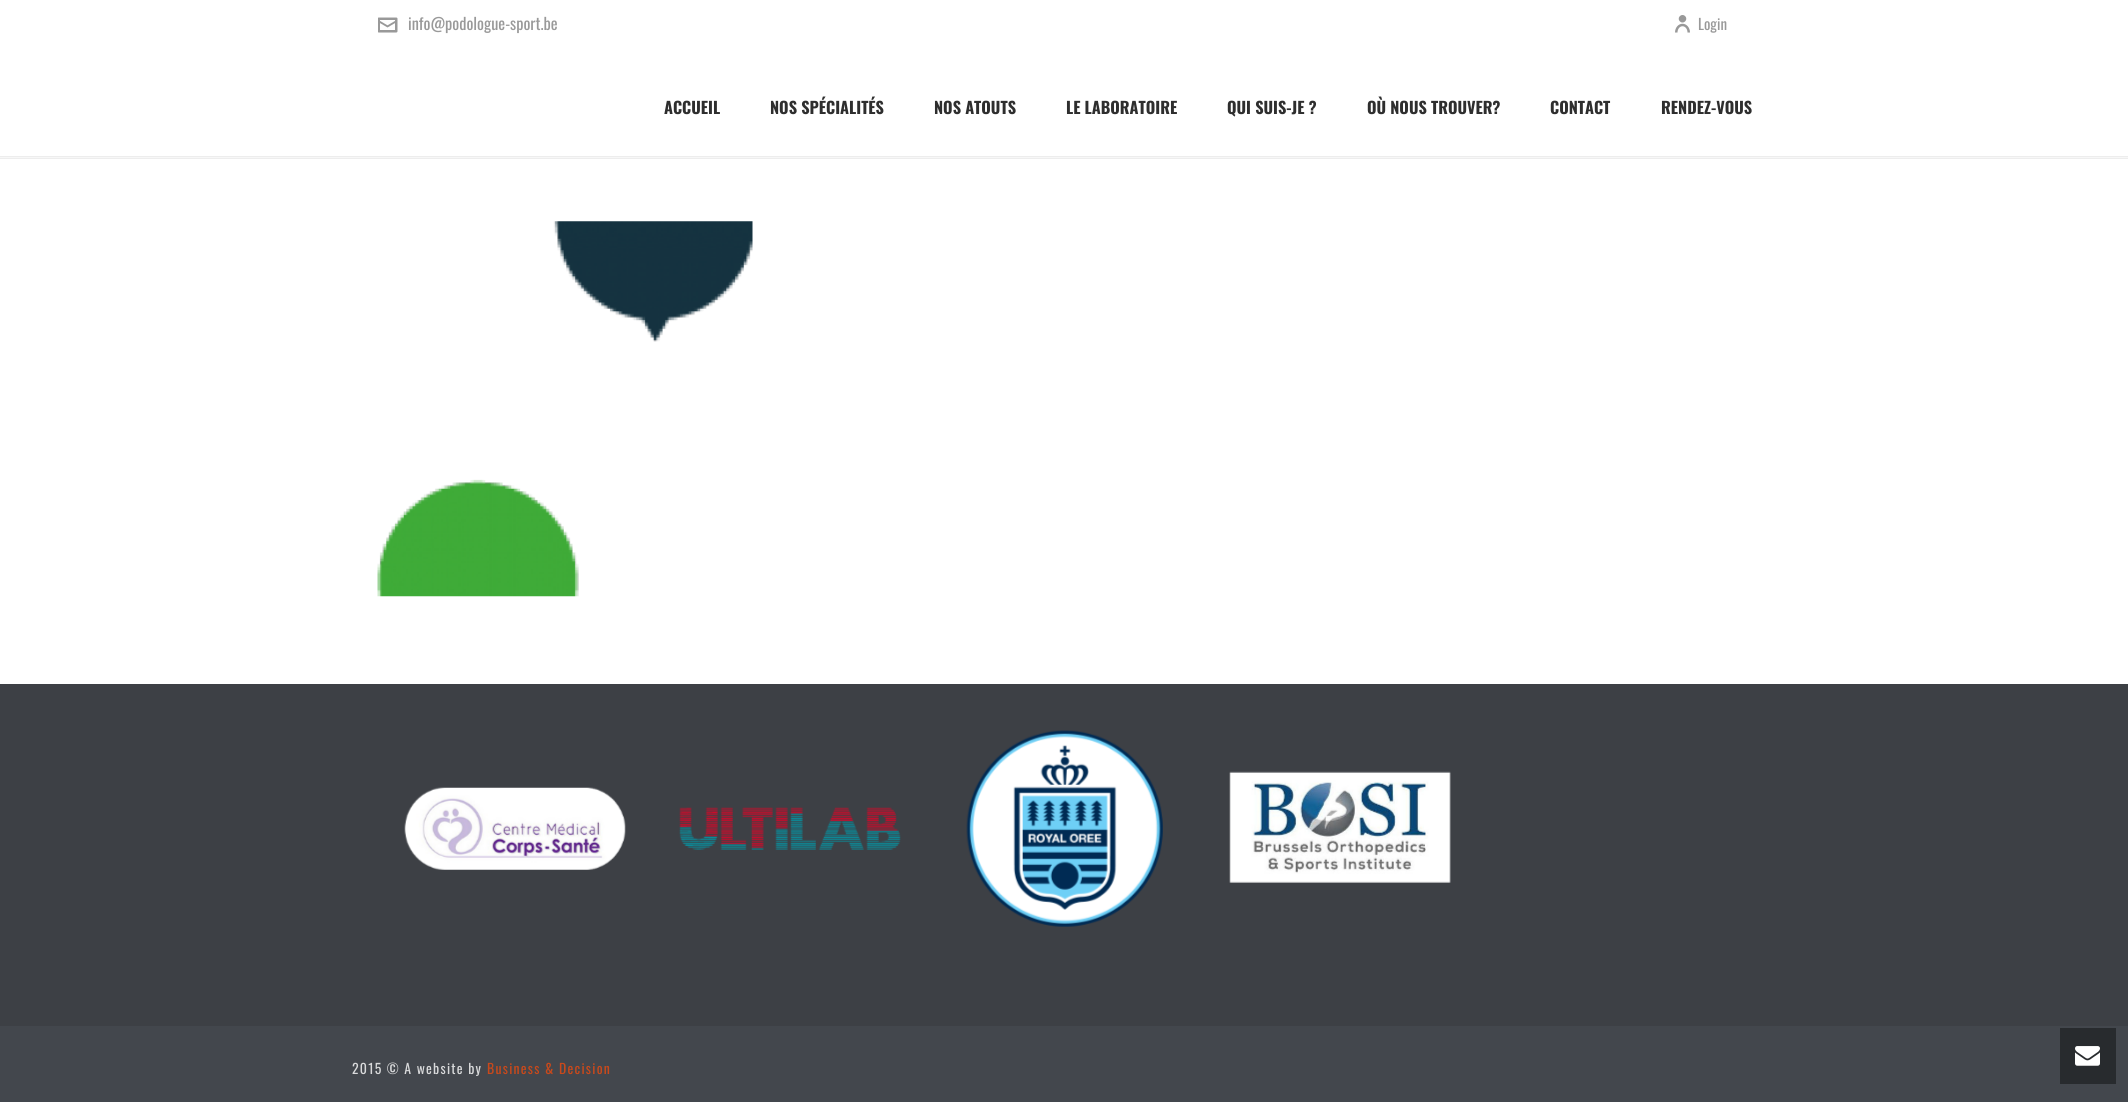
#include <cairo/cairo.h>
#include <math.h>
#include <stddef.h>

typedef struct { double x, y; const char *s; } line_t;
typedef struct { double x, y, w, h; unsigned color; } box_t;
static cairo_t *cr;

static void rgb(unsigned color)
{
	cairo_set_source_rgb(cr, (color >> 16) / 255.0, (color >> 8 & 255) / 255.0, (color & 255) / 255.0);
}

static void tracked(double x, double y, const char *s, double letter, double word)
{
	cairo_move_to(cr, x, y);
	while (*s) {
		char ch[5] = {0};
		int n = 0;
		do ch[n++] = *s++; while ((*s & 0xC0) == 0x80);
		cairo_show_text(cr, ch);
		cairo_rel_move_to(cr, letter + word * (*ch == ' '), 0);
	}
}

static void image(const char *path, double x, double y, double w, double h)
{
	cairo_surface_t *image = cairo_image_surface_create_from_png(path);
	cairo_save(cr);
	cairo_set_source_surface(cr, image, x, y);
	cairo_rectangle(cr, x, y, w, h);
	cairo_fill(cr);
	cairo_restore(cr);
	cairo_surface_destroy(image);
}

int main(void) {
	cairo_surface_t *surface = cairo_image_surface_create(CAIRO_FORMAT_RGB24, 2128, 1102);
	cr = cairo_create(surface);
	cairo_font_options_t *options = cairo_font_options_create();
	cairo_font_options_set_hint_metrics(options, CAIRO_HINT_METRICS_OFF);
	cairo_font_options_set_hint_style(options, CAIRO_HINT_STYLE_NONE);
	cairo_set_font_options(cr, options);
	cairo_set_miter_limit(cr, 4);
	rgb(0x3d4045);
	cairo_paint(cr);
	{
		static const box_t items[] = {
			{0, 157, 2128, 1, 0xf7f7f7},
			{0, 158, 2128, 1, 0xededed},
			{0, 0, 2128, 156, 0xffffff},
		};
		for (size_t i = 0; i < sizeof items / sizeof *items; i++) {
			rgb(items[i].color);
			cairo_rectangle(cr, items[i].x, items[i].y, items[i].w, items[i].h);
			cairo_fill(cr);
		}
	}
	image("img/1.png", 378, 17, 20, 16);
	image("img/2.png", 1675, 15, 15, 18);
	rgb(0xededed);
	cairo_rectangle(cr, 0, 156, 2128, 1);
	cairo_fill(cr);
	rgb(0xffffff);
	cairo_rectangle(cr, 0, 159, 2128, 525);
	cairo_fill(cr);
	image("img/3.png", 377, 221, 376, 376);
	image("img/4.png", 404, 787, 222, 83);
	image("img/5.png", 679, 807, 222, 43);
	image("img/6.png", 966, 730, 197, 197);
	image("img/7.png", 1229, 771, 222, 112);
	rgb(0x43474d);
	cairo_rectangle(cr, 0, 1026, 2128, 76);
	cairo_fill(cr);
	rgb(0x282b2e);
	cairo_rectangle(cr, 2060, 1028, 56, 56);
	cairo_fill(cr);
	image("img/8.png", 2075, 1046, 25, 20);
	cairo_select_font_face(cr, "Oswald", CAIRO_FONT_SLANT_NORMAL, CAIRO_FONT_WEIGHT_NORMAL);
	cairo_set_font_size(cr, 16.25);
	rgb(0x999999);
	cairo_move_to(cr, 408, 30);
	cairo_show_text(cr, "info@podologue-sport.be");
	cairo_set_font_size(cr, 15);
	cairo_move_to(cr, 1698, 30);
	cairo_show_text(cr, "Login");
	cairo_select_font_face(cr, "Oswald", CAIRO_FONT_SLANT_NORMAL, CAIRO_FONT_WEIGHT_BOLD);
	cairo_set_font_size(cr, 16.25);
	rgb(0x2e2e2e);
	{
		static const line_t items[] = {
			{664, 114, "ACCUEIL"},
			{770, 114, "NOS SPÉCIALITÉS"},
			{934, 114, "NOS ATOUTS"},
			{1066, 114, "LE LABORATOIRE"},
			{1227, 114, "QUI SUIS-JE ?"},
			{1367, 114, "OÙ NOUS TROUVER?"},
			{1550, 114, "CONTACT"},
			{1661, 114, "RENDEZ-VOUS"},
		};
		for (size_t i = 0; i < sizeof items / sizeof *items; i++) {
			cairo_move_to(cr, items[i].x, items[i].y);
			cairo_show_text(cr, items[i].s);
		}
	}
	cairo_select_font_face(cr, "Oswald", CAIRO_FONT_SLANT_NORMAL, CAIRO_FONT_WEIGHT_NORMAL);
	cairo_set_font_size(cr, 13.75);
	rgb(0xd9dadb);
	tracked(352, 1074, "2015 © A website by", 1.25, 0);
	rgb(0xc9491b);
	tracked(487, 1074, "Business & Decision", 1.25, 0);
	cairo_surface_write_to_png(surface, "page.png");
	cairo_font_options_destroy(options);
	cairo_destroy(cr);
	cairo_surface_destroy(surface);
	return 0;
}
